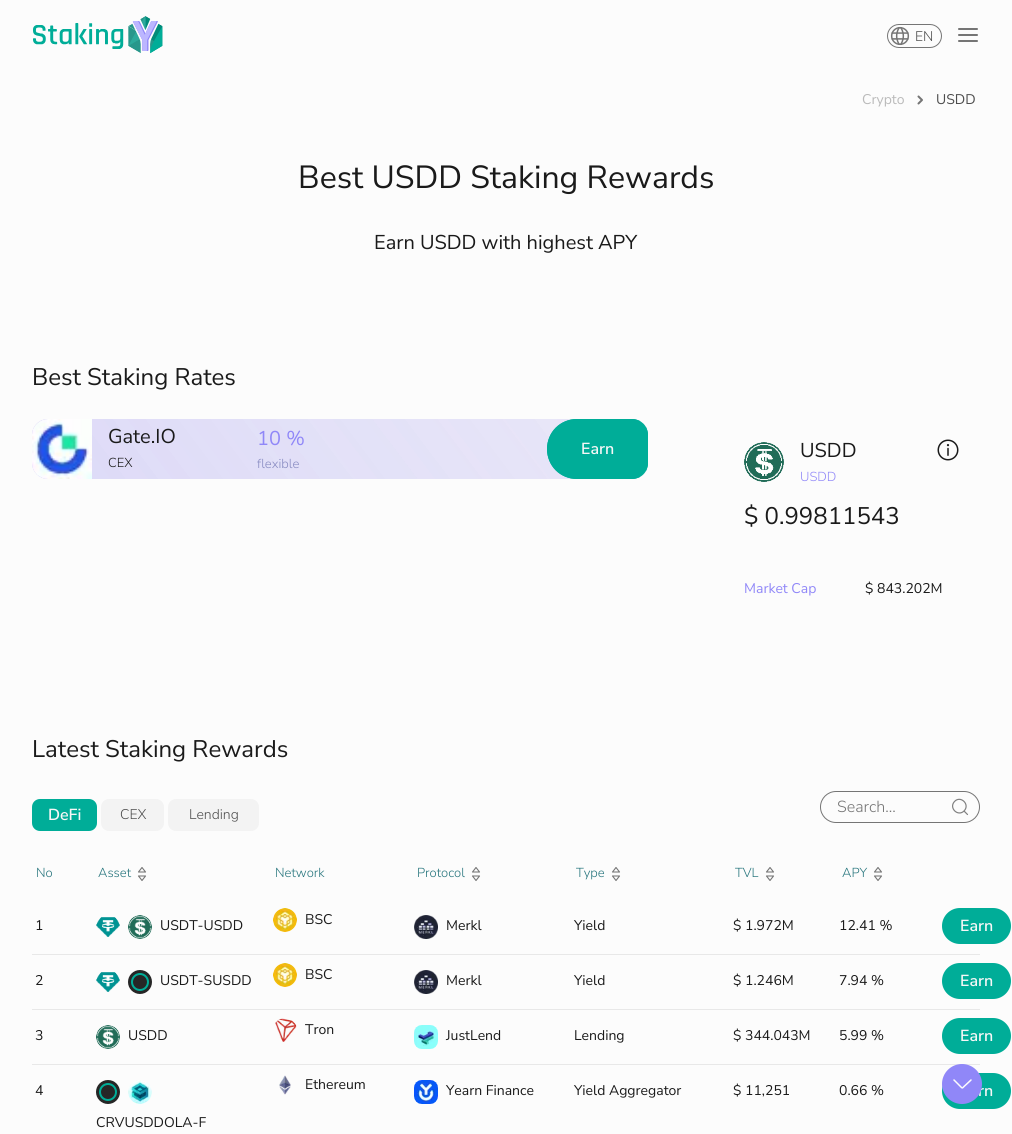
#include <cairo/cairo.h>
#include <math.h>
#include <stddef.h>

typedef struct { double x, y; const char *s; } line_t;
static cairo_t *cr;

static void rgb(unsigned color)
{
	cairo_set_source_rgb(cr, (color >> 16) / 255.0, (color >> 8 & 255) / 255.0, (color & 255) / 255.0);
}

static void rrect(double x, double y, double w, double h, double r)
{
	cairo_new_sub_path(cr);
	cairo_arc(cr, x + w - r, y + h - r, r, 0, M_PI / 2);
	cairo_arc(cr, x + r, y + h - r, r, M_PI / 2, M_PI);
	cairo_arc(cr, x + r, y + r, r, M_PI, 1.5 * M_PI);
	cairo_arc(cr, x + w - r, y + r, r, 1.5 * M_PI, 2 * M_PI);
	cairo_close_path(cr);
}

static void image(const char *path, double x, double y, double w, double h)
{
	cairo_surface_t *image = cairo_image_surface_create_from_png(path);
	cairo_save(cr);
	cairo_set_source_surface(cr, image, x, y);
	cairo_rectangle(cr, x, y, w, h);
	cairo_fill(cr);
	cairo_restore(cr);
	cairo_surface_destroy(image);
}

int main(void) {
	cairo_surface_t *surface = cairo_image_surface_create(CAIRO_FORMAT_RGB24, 1012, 1134);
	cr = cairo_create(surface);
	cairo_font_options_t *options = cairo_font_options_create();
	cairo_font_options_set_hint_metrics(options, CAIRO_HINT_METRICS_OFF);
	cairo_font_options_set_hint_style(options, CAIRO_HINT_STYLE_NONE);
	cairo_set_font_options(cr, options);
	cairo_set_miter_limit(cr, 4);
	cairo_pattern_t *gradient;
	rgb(0xfcfcfc);
	cairo_paint(cr);
	image("img/1.png", 33, 16, 130, 38);
	rrect(887.5, 24.5, 54, 23, 11.5);
	rgb(0x757575);
	cairo_set_line_width(cr, 1);
	cairo_stroke(cr);
	image("img/2.png", 890, 26, 20, 20);
	cairo_new_path(cr);
	cairo_move_to(cr, 959, 29);
	cairo_line_to(cr, 977, 29);
	cairo_move_to(cr, 959, 35);
	cairo_line_to(cr, 977, 35);
	cairo_move_to(cr, 959, 41);
	cairo_line_to(cr, 977, 41);
	cairo_set_line_width(cr, 2);
	cairo_set_line_cap(cr, CAIRO_LINE_CAP_ROUND);
	cairo_set_line_join(cr, CAIRO_LINE_JOIN_ROUND);
	cairo_stroke(cr);
	image("img/3.png", 917, 95, 6, 10);
	rgb(0xf2f1fa);
	rrect(32, 419, 616, 60, 16);
	cairo_fill(cr);
	gradient = cairo_pattern_create_linear(129, 608, 551, 290);
	cairo_pattern_add_color_stop_rgba(gradient, 0, 0.565, 0.529, 0.973, 0.08);
	cairo_pattern_add_color_stop_rgba(gradient, 1, 0.565, 0.529, 0.973, 0);
	cairo_set_source(cr, gradient);
	cairo_pattern_destroy(gradient);
	rrect(32, 419, 616, 60, 16);
	cairo_fill(cr);
	cairo_set_source_rgba(cr, 0.827, 0.812, 0.961, 0.25);
	rrect(32, 419, 616, 60, 16);
	cairo_fill(cr);
	gradient = cairo_pattern_create_linear(129, 608, 551, 290);
	cairo_pattern_add_color_stop_rgba(gradient, 0, 0.565, 0.529, 0.973, 0.08);
	cairo_pattern_add_color_stop_rgba(gradient, 1, 0.565, 0.529, 0.973, 0);
	cairo_set_source(cr, gradient);
	cairo_pattern_destroy(gradient);
	rrect(32, 419, 616, 60, 16);
	cairo_fill(cr);
	image("img/4.png", 32, 419, 60, 60);
	rgb(0x00ad98);
	cairo_new_path(cr);
	cairo_move_to(cr, 577, 419);
	cairo_line_to(cr, 632, 419);
	cairo_curve_to(cr, 641, 419, 648, 426, 648, 435);
	cairo_line_to(cr, 648, 463);
	cairo_curve_to(cr, 648, 472, 641, 479, 632, 479);
	cairo_line_to(cr, 577, 479);
	cairo_curve_to(cr, 560.5, 479, 547, 465.5, 547, 449);
	cairo_curve_to(cr, 547, 432.5, 560.5, 419, 577, 419);
	cairo_close_path(cr);
	cairo_fill(cr);
	cairo_set_fill_rule(cr, CAIRO_FILL_RULE_EVEN_ODD);
	cairo_new_path(cr);
	cairo_move_to(cr, 577, 419);
	cairo_curve_to(cr, 560, 419, 547, 432, 547, 449);
	cairo_curve_to(cr, 547, 466, 560, 479, 577, 479);
	cairo_line_to(cr, 632, 479);
	cairo_curve_to(cr, 635, 479, 637, 478, 640, 477);
	cairo_line_to(cr, 577, 477);
	cairo_curve_to(cr, 562, 477, 549, 464, 549, 449);
	cairo_curve_to(cr, 549, 434, 562, 421, 577, 421);
	cairo_line_to(cr, 640, 421);
	cairo_curve_to(cr, 637, 420, 635, 419, 632, 419);
	cairo_close_path(cr);
	cairo_move_to(cr, 648, 435);
	cairo_curve_to(cr, 648, 432, 647, 430, 646, 427);
	cairo_line_to(cr, 646, 471);
	cairo_curve_to(cr, 647, 468, 648, 466, 648, 463);
	cairo_close_path(cr);
	cairo_fill(cr);
	image("img/5.png", 744, 442, 40, 40);
	image("img/6.png", 937, 439, 22, 22);
	rrect(820.5, 791.5, 159, 31, 15.5);
	rgb(0x757575);
	cairo_set_line_width(cr, 1);
	cairo_set_line_cap(cr, CAIRO_LINE_CAP_BUTT);
	cairo_set_line_join(cr, CAIRO_LINE_JOIN_MITER);
	cairo_stroke(cr);
	cairo_new_path(cr);
	cairo_move_to(cr, 967.5, 814.5);
	cairo_line_to(cr, 964, 811);
	cairo_move_to(cr, 964, 811);
	cairo_curve_to(cr, 970.5, 804.5, 960.5, 795, 954.5, 801.5);
	cairo_curve_to(cr, 948.5, 808, 958, 817, 964, 811);
	cairo_close_path(cr);
	rgb(0x808080);
	cairo_set_line_width(cr, 1.2);
	cairo_set_line_cap(cr, CAIRO_LINE_CAP_ROUND);
	cairo_set_line_join(cr, CAIRO_LINE_JOIN_ROUND);
	cairo_stroke(cr);
	rgb(0x00ad98);
	rrect(32, 799, 65, 32, 8);
	cairo_fill(cr);
	rgb(0xf3f3f3);
	rrect(101, 799, 63, 32, 8);
	cairo_fill(cr);
	rrect(168, 799, 91, 32, 8);
	cairo_fill(cr);
	cairo_new_path(cr);
	cairo_move_to(cr, 142, 867.5);
	cairo_line_to(cr, 138.5, 872);
	cairo_line_to(cr, 145.5, 872);
	cairo_close_path(cr);
	cairo_move_to(cr, 138.5, 876);
	cairo_line_to(cr, 142, 880.5);
	cairo_line_to(cr, 145.5, 876);
	cairo_close_path(cr);
	rgb(0x757575);
	cairo_set_line_width(cr, 1.1);
	cairo_set_line_cap(cr, CAIRO_LINE_CAP_BUTT);
	cairo_stroke(cr);
	cairo_new_path(cr);
	cairo_move_to(cr, 476, 867.5);
	cairo_line_to(cr, 472.5, 872);
	cairo_line_to(cr, 479.5, 872);
	cairo_close_path(cr);
	cairo_move_to(cr, 472.5, 876);
	cairo_line_to(cr, 476, 880.5);
	cairo_line_to(cr, 479.5, 876);
	cairo_close_path(cr);
	cairo_stroke(cr);
	cairo_new_path(cr);
	cairo_move_to(cr, 616, 867.5);
	cairo_line_to(cr, 612.5, 872);
	cairo_line_to(cr, 619.5, 872);
	cairo_close_path(cr);
	cairo_move_to(cr, 612.5, 876);
	cairo_line_to(cr, 616, 880.5);
	cairo_line_to(cr, 619.5, 876);
	cairo_close_path(cr);
	cairo_stroke(cr);
	cairo_new_path(cr);
	cairo_move_to(cr, 770, 867.5);
	cairo_line_to(cr, 766.5, 872);
	cairo_line_to(cr, 773.5, 872);
	cairo_close_path(cr);
	cairo_move_to(cr, 766.5, 876);
	cairo_line_to(cr, 770, 880.5);
	cairo_line_to(cr, 773.5, 876);
	cairo_close_path(cr);
	cairo_stroke(cr);
	cairo_new_path(cr);
	cairo_move_to(cr, 878, 867.5);
	cairo_line_to(cr, 874.5, 872);
	cairo_line_to(cr, 881.5, 872);
	cairo_close_path(cr);
	cairo_move_to(cr, 874.5, 876);
	cairo_line_to(cr, 878, 880.5);
	cairo_line_to(cr, 881.5, 876);
	cairo_close_path(cr);
	cairo_stroke(cr);
	rgb(0xe8e8e8);
	cairo_rectangle(cr, 32, 954, 948, 1);
	cairo_fill(cr);
	image("img/7.png", 96, 917, 24, 20);
	image("img/8.png", 128, 915, 24, 24);
	image("img/9.png", 273, 908, 24, 24);
	image("img/10.png", 414, 915, 24, 24);
	rgb(0x00ad98);
	rrect(943, 909, 67, 34, 17);
	cairo_fill_preserve(cr);
	cairo_set_line_width(cr, 2);
	cairo_set_line_join(cr, CAIRO_LINE_JOIN_MITER);
	cairo_stroke(cr);
	rgb(0xe8e8e8);
	cairo_rectangle(cr, 32, 1009, 948, 1);
	cairo_fill(cr);
	image("img/7.png", 96, 972, 24, 20);
	rgb(0x262626);
	cairo_arc(cr, 140, 982, 12, 0, 2 * M_PI);
	cairo_fill(cr);
	cairo_arc(cr, 140, 982, 8, 0, 2 * M_PI);
	rgb(0x00ad98);
	cairo_stroke(cr);
	image("img/9.png", 273, 963, 24, 24);
	image("img/10.png", 414, 970, 24, 24);
	rrect(943, 964, 67, 34, 17);
	cairo_fill_preserve(cr);
	cairo_stroke(cr);
	rgb(0xe8e8e8);
	cairo_rectangle(cr, 32, 1064, 948, 1);
	cairo_fill(cr);
	image("img/11.png", 96, 1025, 24, 24);
	image("img/12.png", 275, 1018, 22, 24);
	image("img/13.png", 414, 1025, 24, 24);
	rgb(0x00ad98);
	rrect(943, 1019, 67, 34, 17);
	cairo_fill_preserve(cr);
	cairo_stroke(cr);
	image("img/14.png", 279, 1075, 12, 20);
	image("img/15.png", 414, 1080, 24, 24);
	rrect(943, 1074, 67, 34, 17);
	cairo_fill_preserve(cr);
	cairo_stroke(cr);
	rgb(0x262626);
	cairo_arc(cr, 108, 1092, 12, 0, 2 * M_PI);
	cairo_fill(cr);
	cairo_arc(cr, 108, 1092, 8, 0, 2 * M_PI);
	rgb(0x00ad98);
	cairo_stroke(cr);
	image("img/16.png", 128, 1080, 24, 24);
	cairo_select_font_face(cr, "Nunito Sans Light", CAIRO_FONT_SLANT_NORMAL, CAIRO_FONT_WEIGHT_NORMAL);
	cairo_set_font_size(cr, 14);
	rgb(0x4d4d4d);
	cairo_move_to(cr, 915, 41);
	cairo_show_text(cr, "EN");
	cairo_select_font_face(cr, "Nunito Sans", CAIRO_FONT_SLANT_NORMAL, CAIRO_FONT_WEIGHT_NORMAL);
	rgb(0xbababa);
	cairo_move_to(cr, 862, 104);
	cairo_show_text(cr, "Crypto");
	rgb(0x4d4d4d);
	cairo_move_to(cr, 936, 104);
	cairo_show_text(cr, "USDD");
	cairo_set_font_size(cr, 32);
	rgb(0x1a1a1a);
	cairo_move_to(cr, 298, 188);
	cairo_show_text(cr, "Best USDD Staking Rewards");
	cairo_set_font_size(cr, 20);
	cairo_move_to(cr, 374, 249);
	cairo_show_text(cr, "Earn USDD with highest APY");
	cairo_set_font_size(cr, 24);
	cairo_move_to(cr, 32, 385);
	cairo_show_text(cr, "Best Staking Rates");
	cairo_set_font_size(cr, 20);
	cairo_move_to(cr, 108, 443);
	cairo_show_text(cr, "Gate.IO");
	cairo_select_font_face(cr, "Nunito Sans Light", CAIRO_FONT_SLANT_NORMAL, CAIRO_FONT_WEIGHT_NORMAL);
	cairo_set_font_size(cr, 13);
	cairo_move_to(cr, 108, 467);
	cairo_show_text(cr, "CEX");
	cairo_select_font_face(cr, "Nunito Sans", CAIRO_FONT_SLANT_NORMAL, CAIRO_FONT_WEIGHT_NORMAL);
	cairo_set_font_size(cr, 20);
	rgb(0x9087f8);
	cairo_move_to(cr, 257, 445);
	cairo_show_text(cr, "10 %");
	cairo_select_font_face(cr, "Nunito Sans Light", CAIRO_FONT_SLANT_NORMAL, CAIRO_FONT_WEIGHT_NORMAL);
	cairo_set_font_size(cr, 13);
	rgb(0x878ac1);
	cairo_move_to(cr, 257, 468);
	cairo_show_text(cr, "flexible");
	cairo_select_font_face(cr, "Nunito Sans SemiBold", CAIRO_FONT_SLANT_NORMAL, CAIRO_FONT_WEIGHT_NORMAL);
	cairo_set_font_size(cr, 16);
	rgb(0xf7f7f7);
	cairo_move_to(cr, 581, 454);
	cairo_show_text(cr, "Earn");
	cairo_select_font_face(cr, "Nunito Sans", CAIRO_FONT_SLANT_NORMAL, CAIRO_FONT_WEIGHT_NORMAL);
	cairo_set_font_size(cr, 20);
	rgb(0x1a1a1a);
	cairo_move_to(cr, 800, 457);
	cairo_show_text(cr, "USDD");
	cairo_select_font_face(cr, "Nunito Sans Light", CAIRO_FONT_SLANT_NORMAL, CAIRO_FONT_WEIGHT_NORMAL);
	cairo_set_font_size(cr, 13);
	rgb(0x9087f8);
	cairo_move_to(cr, 800, 481);
	cairo_show_text(cr, "USDD");
	cairo_select_font_face(cr, "Nunito Sans", CAIRO_FONT_SLANT_NORMAL, CAIRO_FONT_WEIGHT_NORMAL);
	cairo_set_font_size(cr, 24);
	rgb(0x1a1a1a);
	cairo_move_to(cr, 744, 524);
	cairo_show_text(cr, "$ 0.99811543");
	cairo_set_font_size(cr, 14);
	rgb(0x9087f8);
	cairo_move_to(cr, 744, 593);
	cairo_show_text(cr, "Market Cap");
	rgb(0x1a1a1a);
	cairo_move_to(cr, 865, 593);
	cairo_show_text(cr, "$ 843.202M");
	cairo_set_font_size(cr, 24);
	cairo_move_to(cr, 32, 757);
	cairo_show_text(cr, "Latest Staking Rewards");
	cairo_select_font_face(cr, "Nunito Sans Light", CAIRO_FONT_SLANT_NORMAL, CAIRO_FONT_WEIGHT_NORMAL);
	cairo_set_font_size(cr, 16);
	rgb(0x757575);
	cairo_move_to(cr, 837, 812);
	cairo_show_text(cr, "Search...");
	cairo_select_font_face(cr, "Nunito Sans SemiBold", CAIRO_FONT_SLANT_NORMAL, CAIRO_FONT_WEIGHT_NORMAL);
	rgb(0xf7f7f7);
	cairo_move_to(cr, 48, 820);
	cairo_show_text(cr, "DeFi");
	cairo_select_font_face(cr, "Nunito Sans Light", CAIRO_FONT_SLANT_NORMAL, CAIRO_FONT_WEIGHT_NORMAL);
	cairo_set_font_size(cr, 14);
	rgb(0x4d4d4d);
	cairo_move_to(cr, 120, 819);
	cairo_show_text(cr, "CEX");
	cairo_move_to(cr, 189, 819);
	cairo_show_text(cr, "Lending");
	cairo_set_font_size(cr, 13);
	rgb(0x25747c);
	{
		static const line_t items[] = {
			{36, 877, "No"},
			{98, 877, "Asset"},
			{275, 877, "Network"},
			{417, 877, "Protocol"},
			{576, 877, "Type"},
			{735, 877, "TVL"},
			{842, 877, "APY"},
		};
		for (size_t i = 0; i < sizeof items / sizeof *items; i++) {
			cairo_move_to(cr, items[i].x, items[i].y);
			cairo_show_text(cr, items[i].s);
		}
	}
	cairo_select_font_face(cr, "Nunito Sans", CAIRO_FONT_SLANT_NORMAL, CAIRO_FONT_WEIGHT_NORMAL);
	cairo_set_font_size(cr, 14);
	rgb(0x1a1a1a);
	{
		static const line_t items[] = {
			{35, 930, "1"},
			{160, 930, "USDT-USDD"},
			{305, 924, "BSC"},
			{446, 930, "Merkl"},
			{574, 930, "Yield"},
			{733, 930, "$ 1.972M"},
			{839, 930, "12.41 %"},
		};
		for (size_t i = 0; i < sizeof items / sizeof *items; i++) {
			cairo_move_to(cr, items[i].x, items[i].y);
			cairo_show_text(cr, items[i].s);
		}
	}
	cairo_select_font_face(cr, "Nunito Sans SemiBold", CAIRO_FONT_SLANT_NORMAL, CAIRO_FONT_WEIGHT_NORMAL);
	cairo_set_font_size(cr, 16);
	rgb(0xf7f7f7);
	cairo_move_to(cr, 960, 931);
	cairo_show_text(cr, "Earn");
	cairo_select_font_face(cr, "Nunito Sans", CAIRO_FONT_SLANT_NORMAL, CAIRO_FONT_WEIGHT_NORMAL);
	cairo_set_font_size(cr, 14);
	rgb(0x1a1a1a);
	{
		static const line_t items[] = {
			{35, 985, "2"},
			{160, 985, "USDT-SUSDD"},
			{305, 979, "BSC"},
			{446, 985, "Merkl"},
			{574, 985, "Yield"},
			{733, 985, "$ 1.246M"},
			{839, 985, "7.94 %"},
		};
		for (size_t i = 0; i < sizeof items / sizeof *items; i++) {
			cairo_move_to(cr, items[i].x, items[i].y);
			cairo_show_text(cr, items[i].s);
		}
	}
	cairo_select_font_face(cr, "Nunito Sans SemiBold", CAIRO_FONT_SLANT_NORMAL, CAIRO_FONT_WEIGHT_NORMAL);
	cairo_set_font_size(cr, 16);
	rgb(0xf7f7f7);
	cairo_move_to(cr, 960, 986);
	cairo_show_text(cr, "Earn");
	cairo_select_font_face(cr, "Nunito Sans", CAIRO_FONT_SLANT_NORMAL, CAIRO_FONT_WEIGHT_NORMAL);
	cairo_set_font_size(cr, 14);
	rgb(0x1a1a1a);
	{
		static const line_t items[] = {
			{35, 1040, "3"},
			{128, 1040, "USDD"},
			{305, 1034, "Tron"},
			{446, 1040, "JustLend"},
			{574, 1040, "Lending"},
			{733, 1040, "$ 344.043M"},
			{839, 1040, "5.99 %"},
		};
		for (size_t i = 0; i < sizeof items / sizeof *items; i++) {
			cairo_move_to(cr, items[i].x, items[i].y);
			cairo_show_text(cr, items[i].s);
		}
	}
	cairo_select_font_face(cr, "Nunito Sans SemiBold", CAIRO_FONT_SLANT_NORMAL, CAIRO_FONT_WEIGHT_NORMAL);
	cairo_set_font_size(cr, 16);
	rgb(0xf7f7f7);
	cairo_move_to(cr, 960, 1041);
	cairo_show_text(cr, "Earn");
	cairo_select_font_face(cr, "Nunito Sans", CAIRO_FONT_SLANT_NORMAL, CAIRO_FONT_WEIGHT_NORMAL);
	cairo_set_font_size(cr, 14);
	rgb(0x1a1a1a);
	{
		static const line_t items[] = {
			{35, 1095, "4"},
			{305, 1089, "Ethereum"},
			{446, 1095, "Yearn Finance"},
			{574, 1095, "Yield Aggregator"},
			{733, 1095, "$ 11,251"},
			{839, 1095, "0.66 %"},
		};
		for (size_t i = 0; i < sizeof items / sizeof *items; i++) {
			cairo_move_to(cr, items[i].x, items[i].y);
			cairo_show_text(cr, items[i].s);
		}
	}
	cairo_select_font_face(cr, "Nunito Sans SemiBold", CAIRO_FONT_SLANT_NORMAL, CAIRO_FONT_WEIGHT_NORMAL);
	cairo_set_font_size(cr, 16);
	rgb(0xf7f7f7);
	cairo_move_to(cr, 978, 1096);
	cairo_show_text(cr, "rn");
	cairo_select_font_face(cr, "Nunito Sans", CAIRO_FONT_SLANT_NORMAL, CAIRO_FONT_WEIGHT_NORMAL);
	cairo_set_font_size(cr, 14);
	rgb(0x1a1a1a);
	cairo_move_to(cr, 96, 1127);
	cairo_show_text(cr, "CRVUSDDOLA-F");
	rgb(0x9087f8);
	cairo_new_path(cr);
	cairo_arc(cr, 962, 1084, 20, 0, 2 * M_PI);
	cairo_fill(cr);
	cairo_new_path(cr);
	cairo_move_to(cr, 954, 1080);
	cairo_line_to(cr, 960.5, 1086.5);
	cairo_curve_to(cr, 962.5, 1088.5, 962, 1088.5, 964, 1086.5);
	cairo_line_to(cr, 971, 1080);
	rgb(0xfcfcfc);
	cairo_set_line_width(cr, 1.5);
	cairo_set_line_cap(cr, CAIRO_LINE_CAP_ROUND);
	cairo_stroke(cr);
	cairo_surface_write_to_png(surface, "page.png");
	cairo_font_options_destroy(options);
	cairo_destroy(cr);
	cairo_surface_destroy(surface);
	return 0;
}
